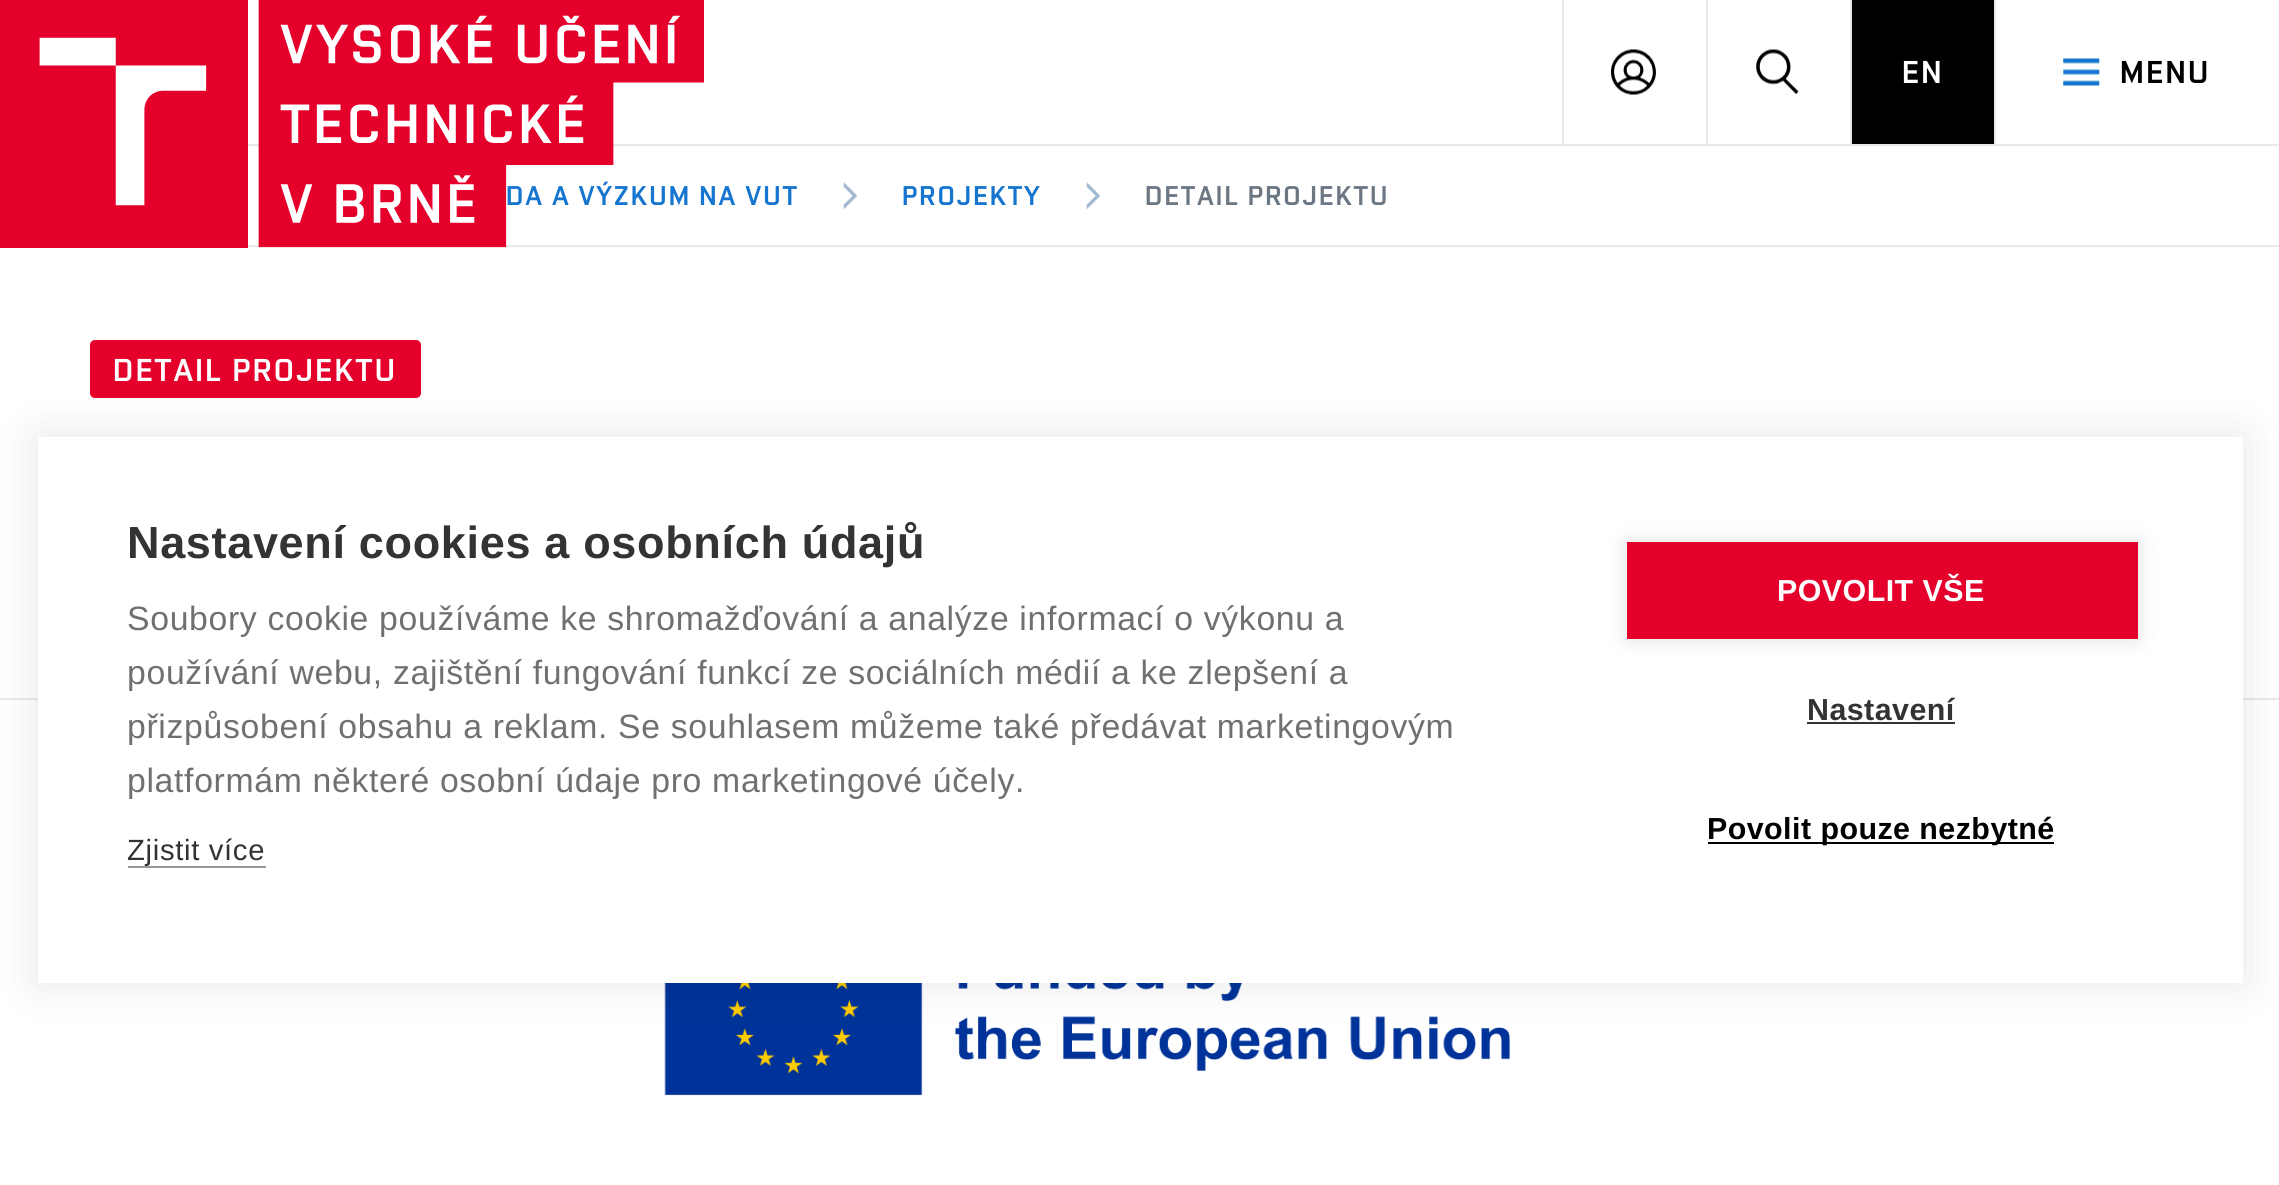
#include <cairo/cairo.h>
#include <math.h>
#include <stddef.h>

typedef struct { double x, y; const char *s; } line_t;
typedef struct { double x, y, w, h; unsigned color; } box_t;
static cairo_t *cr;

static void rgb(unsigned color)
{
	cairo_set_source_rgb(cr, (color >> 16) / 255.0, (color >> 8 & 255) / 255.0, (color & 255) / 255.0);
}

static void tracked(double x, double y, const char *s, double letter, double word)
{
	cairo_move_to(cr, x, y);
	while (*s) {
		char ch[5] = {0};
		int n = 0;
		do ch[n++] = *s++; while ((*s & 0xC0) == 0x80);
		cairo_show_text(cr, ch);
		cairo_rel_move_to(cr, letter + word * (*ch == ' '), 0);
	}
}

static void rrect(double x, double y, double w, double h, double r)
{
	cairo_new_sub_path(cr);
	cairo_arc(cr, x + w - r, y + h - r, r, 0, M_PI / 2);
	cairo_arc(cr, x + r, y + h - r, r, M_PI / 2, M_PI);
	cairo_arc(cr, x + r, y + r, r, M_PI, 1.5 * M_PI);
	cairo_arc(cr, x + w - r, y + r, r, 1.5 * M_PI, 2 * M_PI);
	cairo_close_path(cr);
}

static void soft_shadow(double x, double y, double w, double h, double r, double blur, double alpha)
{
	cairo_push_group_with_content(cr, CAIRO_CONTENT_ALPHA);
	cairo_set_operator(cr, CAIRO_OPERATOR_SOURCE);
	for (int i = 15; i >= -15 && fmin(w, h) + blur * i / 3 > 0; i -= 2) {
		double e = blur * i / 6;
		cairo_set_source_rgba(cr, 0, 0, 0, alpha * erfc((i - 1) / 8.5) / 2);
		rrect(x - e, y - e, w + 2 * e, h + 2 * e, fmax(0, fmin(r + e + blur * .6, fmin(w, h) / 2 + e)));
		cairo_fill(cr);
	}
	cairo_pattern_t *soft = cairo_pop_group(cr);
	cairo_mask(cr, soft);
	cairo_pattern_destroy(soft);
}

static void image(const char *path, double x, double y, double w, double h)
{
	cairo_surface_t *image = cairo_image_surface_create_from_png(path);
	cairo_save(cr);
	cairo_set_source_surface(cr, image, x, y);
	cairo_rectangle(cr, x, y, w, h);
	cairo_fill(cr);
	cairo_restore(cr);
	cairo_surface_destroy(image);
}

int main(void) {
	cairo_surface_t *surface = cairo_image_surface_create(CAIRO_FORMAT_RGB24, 2279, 1185);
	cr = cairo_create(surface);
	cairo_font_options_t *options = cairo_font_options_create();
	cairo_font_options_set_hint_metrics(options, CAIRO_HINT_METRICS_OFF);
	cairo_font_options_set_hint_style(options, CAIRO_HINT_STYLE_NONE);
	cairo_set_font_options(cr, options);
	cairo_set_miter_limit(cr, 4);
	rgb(0xffffff);
	cairo_paint(cr);
	rgb(0xe4002b);
	cairo_rectangle(cr, 0, 0, 248, 248);
	cairo_fill(cr);
	image("img/1.png", 39, 37, 168, 169);
	rgb(0xe8eaea);
	cairo_rectangle(cr, 248, 144, 2031, 2);
	cairo_fill(cr);
	cairo_rectangle(cr, 1562, 0, 2, 144);
	cairo_fill(cr);
	image("img/3.png", 1611, 49, 45, 46);
	cairo_rectangle(cr, 1706, 0, 2, 144);
	cairo_fill(cr);
	image("img/4.png", 1756, 49, 43, 46);
	{
		static const box_t items[] = {
			{1850, 0, 2, 144, 0xe8eaea},
			{1852, 0, 142, 144, 0x000000},
			{1994, 0, 2, 144, 0xe8eaea},
		};
		for (size_t i = 0; i < sizeof items / sizeof *items; i++) {
			rgb(items[i].color);
			cairo_rectangle(cr, items[i].x, items[i].y, items[i].w, items[i].h);
			cairo_fill(cr);
		}
	}
	image("img/5.png", 2063, 58, 37, 28);
	cairo_rectangle(cr, 248, 245, 2031, 2);
	cairo_fill(cr);
	image("img/6.png", 843, 182, 15, 28);
	image("img/6.png", 1086, 182, 15, 28);
	rgb(0xe4002b);
	rrect(90, 340, 331, 58, 5);
	cairo_fill(cr);
	rgb(0xe8eaea);
	cairo_rectangle(cr, 0, 698, 2279, 2);
	cairo_fill(cr);
	image("img/7.png", 664, 983, 846, 113);
	rgb(0x000000);
	soft_shadow(38, 437, 2205, 546, 0, 22.5, 0.1);
	rgb(0xffffff);
	cairo_rectangle(cr, 38, 437, 2205, 546);
	cairo_fill(cr);
	rgb(0x999999);
	cairo_rectangle(cr, 128, 866, 138, 2);
	cairo_fill(cr);
	rgb(0x000000);
	soft_shadow(1627, 542, 511, 97, 0, 11, 0.12);
	{
		static const box_t items[] = {
			{1627, 542, 511, 97, 0xe4002b},
			{1807, 722, 148, 2, 0x333333},
			{1708, 842, 346, 2, 0x000000},
		};
		for (size_t i = 0; i < sizeof items / sizeof *items; i++) {
			rgb(items[i].color);
			cairo_rectangle(cr, items[i].x, items[i].y, items[i].w, items[i].h);
			cairo_fill(cr);
		}
	}
	cairo_select_font_face(cr, "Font", CAIRO_FONT_SLANT_NORMAL, CAIRO_FONT_WEIGHT_NORMAL);
	cairo_set_font_size(cr, 31.5);
	rgb(0xffffff);
	tracked(1902, 83, "EN", 2.5, 0);
	rgb(0x000000);
	tracked(2120, 83, "MENU", 2.5, 0);
	cairo_set_font_size(cr, 27);
	rgb(0x1675cf);
	tracked(506, 205, "DA A VÝZKUM NA VUT", 2.2, 0);
	image("img/2.png", 258, 0, 446, 248);
	tracked(902, 205, "PROJEKTY", 2.2, 0);
	rgb(0x6c7784);
	tracked(1145, 205, "DETAIL PROJEKTU", 2.2, 0);
	cairo_set_font_size(cr, 31.5);
	rgb(0xffffff);
	tracked(113, 381, "DETAIL PROJEKTU", 2.5, 0);
	cairo_select_font_face(cr, "Liberation Sans", CAIRO_FONT_SLANT_NORMAL, CAIRO_FONT_WEIGHT_BOLD);
	cairo_set_font_size(cr, 45);
	rgb(0x333333);
	tracked(127, 558, "Nastavení cookies a osobních údajů", 0.67, 0);
	cairo_select_font_face(cr, "Liberation Sans", CAIRO_FONT_SLANT_NORMAL, CAIRO_FONT_WEIGHT_NORMAL);
	cairo_set_font_size(cr, 33.75);
	rgb(0x707070);
	{
		static const line_t items[] = {
			{127, 630, "Soubory cookie používáme ke shromažďování a analýze informací o výkonu a"},
			{127, 684, "používání webu, zajištění fungování funkcí ze sociálních médií a ke zlepšení a"},
			{127, 738, "přizpůsobení obsahu a reklam. Se souhlasem můžeme také předávat marketingovým"},
			{127, 792, "platformám některé osobní údaje pro marketingové účely."},
		};
		for (size_t i = 0; i < sizeof items / sizeof *items; i++) {
			tracked(items[i].x, items[i].y, items[i].s, 0.67, 0);
		}
	}
	cairo_set_font_size(cr, 29.25);
	rgb(0x333333);
	tracked(127, 860, "Zjistit více", 0.67, 0);
	cairo_select_font_face(cr, "Liberation Sans", CAIRO_FONT_SLANT_NORMAL, CAIRO_FONT_WEIGHT_BOLD);
	cairo_set_font_size(cr, 30.4);
	rgb(0xffffff);
	tracked(1777, 601, "POVOLIT VŠE", 0.45, 0);
	rgb(0x333333);
	tracked(1807, 720, "Nastavení", 0.45, 0);
	rgb(0x000000);
	tracked(1707, 839, "Povolit pouze nezbytné", 0.45, 0);
	cairo_surface_write_to_png(surface, "page.png");
	cairo_font_options_destroy(options);
	cairo_destroy(cr);
	cairo_surface_destroy(surface);
	return 0;
}
